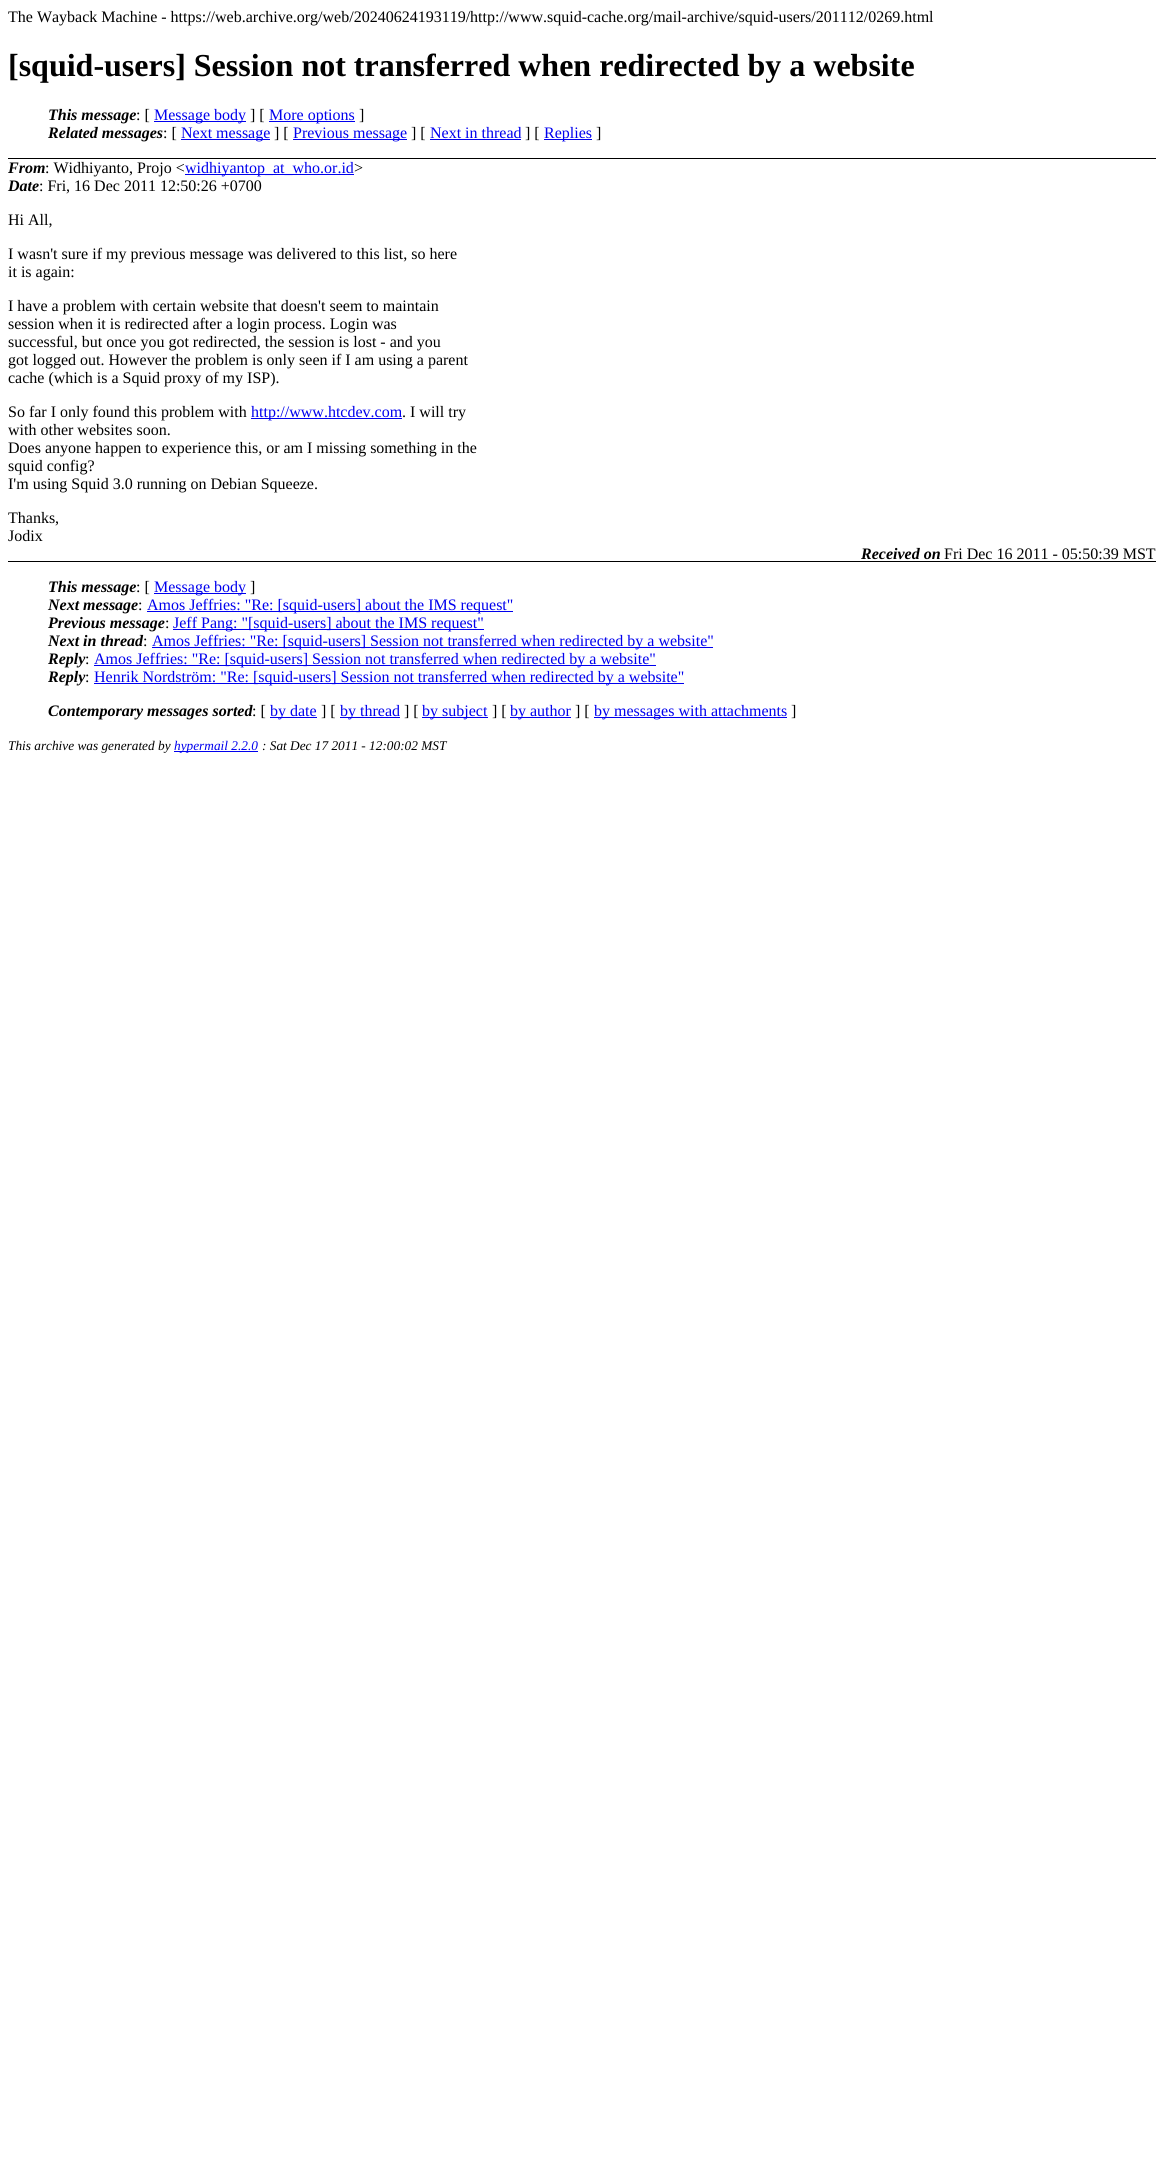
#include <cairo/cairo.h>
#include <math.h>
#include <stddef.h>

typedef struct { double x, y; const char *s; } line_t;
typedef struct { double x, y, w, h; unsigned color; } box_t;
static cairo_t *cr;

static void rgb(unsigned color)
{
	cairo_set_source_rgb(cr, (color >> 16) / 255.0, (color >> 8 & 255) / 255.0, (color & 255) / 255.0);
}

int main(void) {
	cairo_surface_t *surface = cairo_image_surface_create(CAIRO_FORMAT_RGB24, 1164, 2164);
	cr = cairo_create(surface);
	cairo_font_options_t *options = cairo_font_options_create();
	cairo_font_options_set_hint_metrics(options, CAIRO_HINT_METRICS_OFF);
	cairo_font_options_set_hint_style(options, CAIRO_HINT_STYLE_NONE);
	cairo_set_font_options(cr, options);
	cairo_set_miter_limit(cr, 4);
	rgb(0xffffff);
	cairo_paint(cr);
	{
		static const box_t items[] = {
			{8, 158, 1148, 1, 0x000000},
			{154, 121, 92, 1, 0x0000ee},
			{269, 121, 86, 1, 0x0000ee},
			{181, 139, 89, 1, 0x0000ee},
			{293, 139, 114, 1, 0x0000ee},
			{430, 139, 91, 1, 0x0000ee},
			{544, 139, 48, 1, 0x0000ee},
			{185, 174, 169, 1, 0x0000ee},
			{251, 418, 151, 1, 0x0000ee},
			{8, 561, 1148, 1, 0x000000},
			{154, 593, 92, 1, 0x0000ee},
			{147, 611, 366, 1, 0x0000ee},
			{173, 629, 311, 1, 0x0000ee},
			{152, 647, 561, 1, 0x0000ee},
			{94, 665, 562, 1, 0x0000ee},
			{94, 683, 590, 1, 0x0000ee},
			{270, 717, 47, 1, 0x0000ee},
			{340, 717, 60, 1, 0x0000ee},
			{422, 717, 66, 1, 0x0000ee},
			{510, 717, 61, 1, 0x0000ee},
			{594, 717, 193, 1, 0x0000ee},
			{174, 751, 84, 1, 0x0000ee},
		};
		for (size_t i = 0; i < sizeof items / sizeof *items; i++) {
			rgb(items[i].color);
			cairo_rectangle(cr, items[i].x, items[i].y, items[i].w, items[i].h);
			cairo_fill(cr);
		}
	}
	cairo_select_font_face(cr, "Liberation Serif", CAIRO_FONT_SLANT_NORMAL, CAIRO_FONT_WEIGHT_NORMAL);
	cairo_set_font_size(cr, 16);
	rgb(0x000000);
	cairo_move_to(cr, 8, 22);
	cairo_show_text(cr, "The Wayback Machine - https://web.archive.org/web/20240624193119/http://www.squid-cache.org/mail-archive/squid-users/201112/0269.html");
	cairo_select_font_face(cr, "Liberation Serif", CAIRO_FONT_SLANT_NORMAL, CAIRO_FONT_WEIGHT_BOLD);
	cairo_set_font_size(cr, 32);
	cairo_move_to(cr, 8, 76);
	cairo_show_text(cr, "[squid-users] Session not transferred when redirected by a website");
	cairo_select_font_face(cr, "Liberation Serif", CAIRO_FONT_SLANT_ITALIC, CAIRO_FONT_WEIGHT_BOLD);
	cairo_set_font_size(cr, 16);
	cairo_move_to(cr, 48, 120);
	cairo_show_text(cr, "This message");
	cairo_select_font_face(cr, "Liberation Serif", CAIRO_FONT_SLANT_NORMAL, CAIRO_FONT_WEIGHT_NORMAL);
	cairo_move_to(cr, 136, 120);
	cairo_show_text(cr, ": [");
	rgb(0x0000ee);
	cairo_move_to(cr, 154, 120);
	cairo_show_text(cr, "Message body");
	rgb(0x000000);
	cairo_move_to(cr, 250, 120);
	cairo_show_text(cr, "] [");
	rgb(0x0000ee);
	cairo_move_to(cr, 269, 120);
	cairo_show_text(cr, "More options");
	rgb(0x000000);
	cairo_move_to(cr, 359, 120);
	cairo_show_text(cr, "]");
	cairo_select_font_face(cr, "Liberation Serif", CAIRO_FONT_SLANT_ITALIC, CAIRO_FONT_WEIGHT_BOLD);
	cairo_move_to(cr, 48, 138);
	cairo_show_text(cr, "Related messages");
	cairo_select_font_face(cr, "Liberation Serif", CAIRO_FONT_SLANT_NORMAL, CAIRO_FONT_WEIGHT_NORMAL);
	cairo_move_to(cr, 163, 138);
	cairo_show_text(cr, ": [");
	rgb(0x0000ee);
	cairo_move_to(cr, 181, 138);
	cairo_show_text(cr, "Next message");
	rgb(0x000000);
	cairo_move_to(cr, 274, 138);
	cairo_show_text(cr, "] [");
	rgb(0x0000ee);
	cairo_move_to(cr, 293, 138);
	cairo_show_text(cr, "Previous message");
	rgb(0x000000);
	cairo_move_to(cr, 411, 138);
	cairo_show_text(cr, "] [");
	rgb(0x0000ee);
	cairo_move_to(cr, 430, 138);
	cairo_show_text(cr, "Next in thread");
	rgb(0x000000);
	cairo_move_to(cr, 525, 138);
	cairo_show_text(cr, "] [");
	rgb(0x0000ee);
	cairo_move_to(cr, 544, 138);
	cairo_show_text(cr, "Replies");
	rgb(0x000000);
	cairo_move_to(cr, 596, 138);
	cairo_show_text(cr, "]");
	cairo_select_font_face(cr, "Liberation Serif", CAIRO_FONT_SLANT_ITALIC, CAIRO_FONT_WEIGHT_BOLD);
	cairo_move_to(cr, 8, 173);
	cairo_show_text(cr, "From");
	cairo_select_font_face(cr, "Liberation Serif", CAIRO_FONT_SLANT_NORMAL, CAIRO_FONT_WEIGHT_NORMAL);
	cairo_move_to(cr, 45, 173);
	cairo_show_text(cr, ": Widhiyanto, Projo <");
	rgb(0x0000ee);
	cairo_move_to(cr, 185, 173);
	cairo_show_text(cr, "widhiyantop_at_who.or.id");
	rgb(0x000000);
	cairo_move_to(cr, 354, 173);
	cairo_show_text(cr, ">");
	cairo_select_font_face(cr, "Liberation Serif", CAIRO_FONT_SLANT_ITALIC, CAIRO_FONT_WEIGHT_BOLD);
	cairo_move_to(cr, 8, 191);
	cairo_show_text(cr, "Date");
	cairo_select_font_face(cr, "Liberation Serif", CAIRO_FONT_SLANT_NORMAL, CAIRO_FONT_WEIGHT_NORMAL);
	{
		static const line_t items[] = {
			{39, 191, ": Fri, 16 Dec 2011 12:50:26 +0700"},
			{8, 225, "Hi All,"},
			{8, 259, "I wasn't sure if my previous message was delivered to this list, so here"},
			{8, 277, "it is again:"},
			{8, 311, "I have a problem with certain website that doesn't seem to maintain"},
			{8, 329, "session when it is redirected after a login process. Login was"},
			{8, 347, "successful, but once you got redirected, the session is lost - and you"},
			{8, 365, "got logged out. However the problem is only seen if I am using a parent"},
			{8, 383, "cache (which is a Squid proxy of my ISP)."},
			{8, 417, "So far I only found this problem with"},
		};
		for (size_t i = 0; i < sizeof items / sizeof *items; i++) {
			cairo_move_to(cr, items[i].x, items[i].y);
			cairo_show_text(cr, items[i].s);
		}
	}
	rgb(0x0000ee);
	cairo_move_to(cr, 251, 417);
	cairo_show_text(cr, "http://www.htcdev.com");
	rgb(0x000000);
	{
		static const line_t items[] = {
			{402, 417, ". I will try"},
			{8, 435, "with other websites soon."},
			{8, 453, "Does anyone happen to experience this, or am I missing something in the"},
			{8, 471, "squid config?"},
			{8, 489, "I'm using Squid 3.0 running on Debian Squeeze."},
			{8, 523, "Thanks,"},
			{8, 541, "Jodix"},
		};
		for (size_t i = 0; i < sizeof items / sizeof *items; i++) {
			cairo_move_to(cr, items[i].x, items[i].y);
			cairo_show_text(cr, items[i].s);
		}
	}
	cairo_select_font_face(cr, "Liberation Serif", CAIRO_FONT_SLANT_ITALIC, CAIRO_FONT_WEIGHT_BOLD);
	cairo_move_to(cr, 861, 559);
	cairo_show_text(cr, "Received on");
	cairo_select_font_face(cr, "Liberation Serif", CAIRO_FONT_SLANT_NORMAL, CAIRO_FONT_WEIGHT_NORMAL);
	cairo_move_to(cr, 944, 559);
	cairo_show_text(cr, "Fri Dec 16 2011 - 05:50:39 MST");
	cairo_select_font_face(cr, "Liberation Serif", CAIRO_FONT_SLANT_ITALIC, CAIRO_FONT_WEIGHT_BOLD);
	cairo_move_to(cr, 48, 592);
	cairo_show_text(cr, "This message");
	cairo_select_font_face(cr, "Liberation Serif", CAIRO_FONT_SLANT_NORMAL, CAIRO_FONT_WEIGHT_NORMAL);
	cairo_move_to(cr, 136, 592);
	cairo_show_text(cr, ": [");
	rgb(0x0000ee);
	cairo_move_to(cr, 154, 592);
	cairo_show_text(cr, "Message body");
	rgb(0x000000);
	cairo_move_to(cr, 250, 592);
	cairo_show_text(cr, "]");
	cairo_select_font_face(cr, "Liberation Serif", CAIRO_FONT_SLANT_ITALIC, CAIRO_FONT_WEIGHT_BOLD);
	cairo_move_to(cr, 48, 610);
	cairo_show_text(cr, "Next message");
	cairo_select_font_face(cr, "Liberation Serif", CAIRO_FONT_SLANT_NORMAL, CAIRO_FONT_WEIGHT_NORMAL);
	cairo_move_to(cr, 138, 610);
	cairo_show_text(cr, ":");
	rgb(0x0000ee);
	cairo_move_to(cr, 147, 610);
	cairo_show_text(cr, "Amos Jeffries: \"Re: [squid-users] about the IMS request\"");
	cairo_select_font_face(cr, "Liberation Serif", CAIRO_FONT_SLANT_ITALIC, CAIRO_FONT_WEIGHT_BOLD);
	rgb(0x000000);
	cairo_move_to(cr, 48, 628);
	cairo_show_text(cr, "Previous message");
	cairo_select_font_face(cr, "Liberation Serif", CAIRO_FONT_SLANT_NORMAL, CAIRO_FONT_WEIGHT_NORMAL);
	cairo_move_to(cr, 165, 628);
	cairo_show_text(cr, ":");
	rgb(0x0000ee);
	cairo_move_to(cr, 173, 628);
	cairo_show_text(cr, "Jeff Pang: \"[squid-users] about the IMS request\"");
	cairo_select_font_face(cr, "Liberation Serif", CAIRO_FONT_SLANT_ITALIC, CAIRO_FONT_WEIGHT_BOLD);
	rgb(0x000000);
	cairo_move_to(cr, 48, 646);
	cairo_show_text(cr, "Next in thread");
	cairo_select_font_face(cr, "Liberation Serif", CAIRO_FONT_SLANT_NORMAL, CAIRO_FONT_WEIGHT_NORMAL);
	cairo_move_to(cr, 143, 646);
	cairo_show_text(cr, ":");
	rgb(0x0000ee);
	cairo_move_to(cr, 152, 646);
	cairo_show_text(cr, "Amos Jeffries: \"Re: [squid-users] Session not transferred when redirected by a website\"");
	cairo_select_font_face(cr, "Liberation Serif", CAIRO_FONT_SLANT_ITALIC, CAIRO_FONT_WEIGHT_BOLD);
	rgb(0x000000);
	cairo_move_to(cr, 48, 664);
	cairo_show_text(cr, "Reply");
	cairo_select_font_face(cr, "Liberation Serif", CAIRO_FONT_SLANT_NORMAL, CAIRO_FONT_WEIGHT_NORMAL);
	cairo_move_to(cr, 85, 664);
	cairo_show_text(cr, ":");
	rgb(0x0000ee);
	cairo_move_to(cr, 94, 664);
	cairo_show_text(cr, "Amos Jeffries: \"Re: [squid-users] Session not transferred when redirected by a website\"");
	cairo_select_font_face(cr, "Liberation Serif", CAIRO_FONT_SLANT_ITALIC, CAIRO_FONT_WEIGHT_BOLD);
	rgb(0x000000);
	cairo_move_to(cr, 48, 682);
	cairo_show_text(cr, "Reply");
	cairo_select_font_face(cr, "Liberation Serif", CAIRO_FONT_SLANT_NORMAL, CAIRO_FONT_WEIGHT_NORMAL);
	cairo_move_to(cr, 85, 682);
	cairo_show_text(cr, ":");
	rgb(0x0000ee);
	cairo_move_to(cr, 94, 682);
	cairo_show_text(cr, "Henrik Nordström: \"Re: [squid-users] Session not transferred when redirected by a website\"");
	cairo_select_font_face(cr, "Liberation Serif", CAIRO_FONT_SLANT_ITALIC, CAIRO_FONT_WEIGHT_BOLD);
	rgb(0x000000);
	cairo_move_to(cr, 48, 716);
	cairo_show_text(cr, "Contemporary messages sorted");
	cairo_select_font_face(cr, "Liberation Serif", CAIRO_FONT_SLANT_NORMAL, CAIRO_FONT_WEIGHT_NORMAL);
	cairo_move_to(cr, 252, 716);
	cairo_show_text(cr, ": [");
	rgb(0x0000ee);
	cairo_move_to(cr, 270, 716);
	cairo_show_text(cr, "by date");
	rgb(0x000000);
	cairo_move_to(cr, 321, 716);
	cairo_show_text(cr, "] [");
	rgb(0x0000ee);
	cairo_move_to(cr, 340, 716);
	cairo_show_text(cr, "by thread");
	rgb(0x000000);
	cairo_move_to(cr, 404, 716);
	cairo_show_text(cr, "] [");
	rgb(0x0000ee);
	cairo_move_to(cr, 422, 716);
	cairo_show_text(cr, "by subject");
	rgb(0x000000);
	cairo_move_to(cr, 492, 716);
	cairo_show_text(cr, "] [");
	rgb(0x0000ee);
	cairo_move_to(cr, 510, 716);
	cairo_show_text(cr, "by author");
	rgb(0x000000);
	cairo_move_to(cr, 575, 716);
	cairo_show_text(cr, "] [");
	rgb(0x0000ee);
	cairo_move_to(cr, 594, 716);
	cairo_show_text(cr, "by messages with attachments");
	rgb(0x000000);
	cairo_move_to(cr, 791, 716);
	cairo_show_text(cr, "]");
	cairo_select_font_face(cr, "Liberation Serif", CAIRO_FONT_SLANT_ITALIC, CAIRO_FONT_WEIGHT_NORMAL);
	cairo_set_font_size(cr, 13.3);
	cairo_move_to(cr, 8, 750);
	cairo_show_text(cr, "This archive was generated by");
	rgb(0x0000ee);
	cairo_move_to(cr, 174, 750);
	cairo_show_text(cr, "hypermail 2.2.0");
	rgb(0x000000);
	cairo_move_to(cr, 262, 750);
	cairo_show_text(cr, ": Sat Dec 17 2011 - 12:00:02 MST");
	cairo_surface_write_to_png(surface, "page.png");
	cairo_font_options_destroy(options);
	cairo_destroy(cr);
	cairo_surface_destroy(surface);
	return 0;
}
